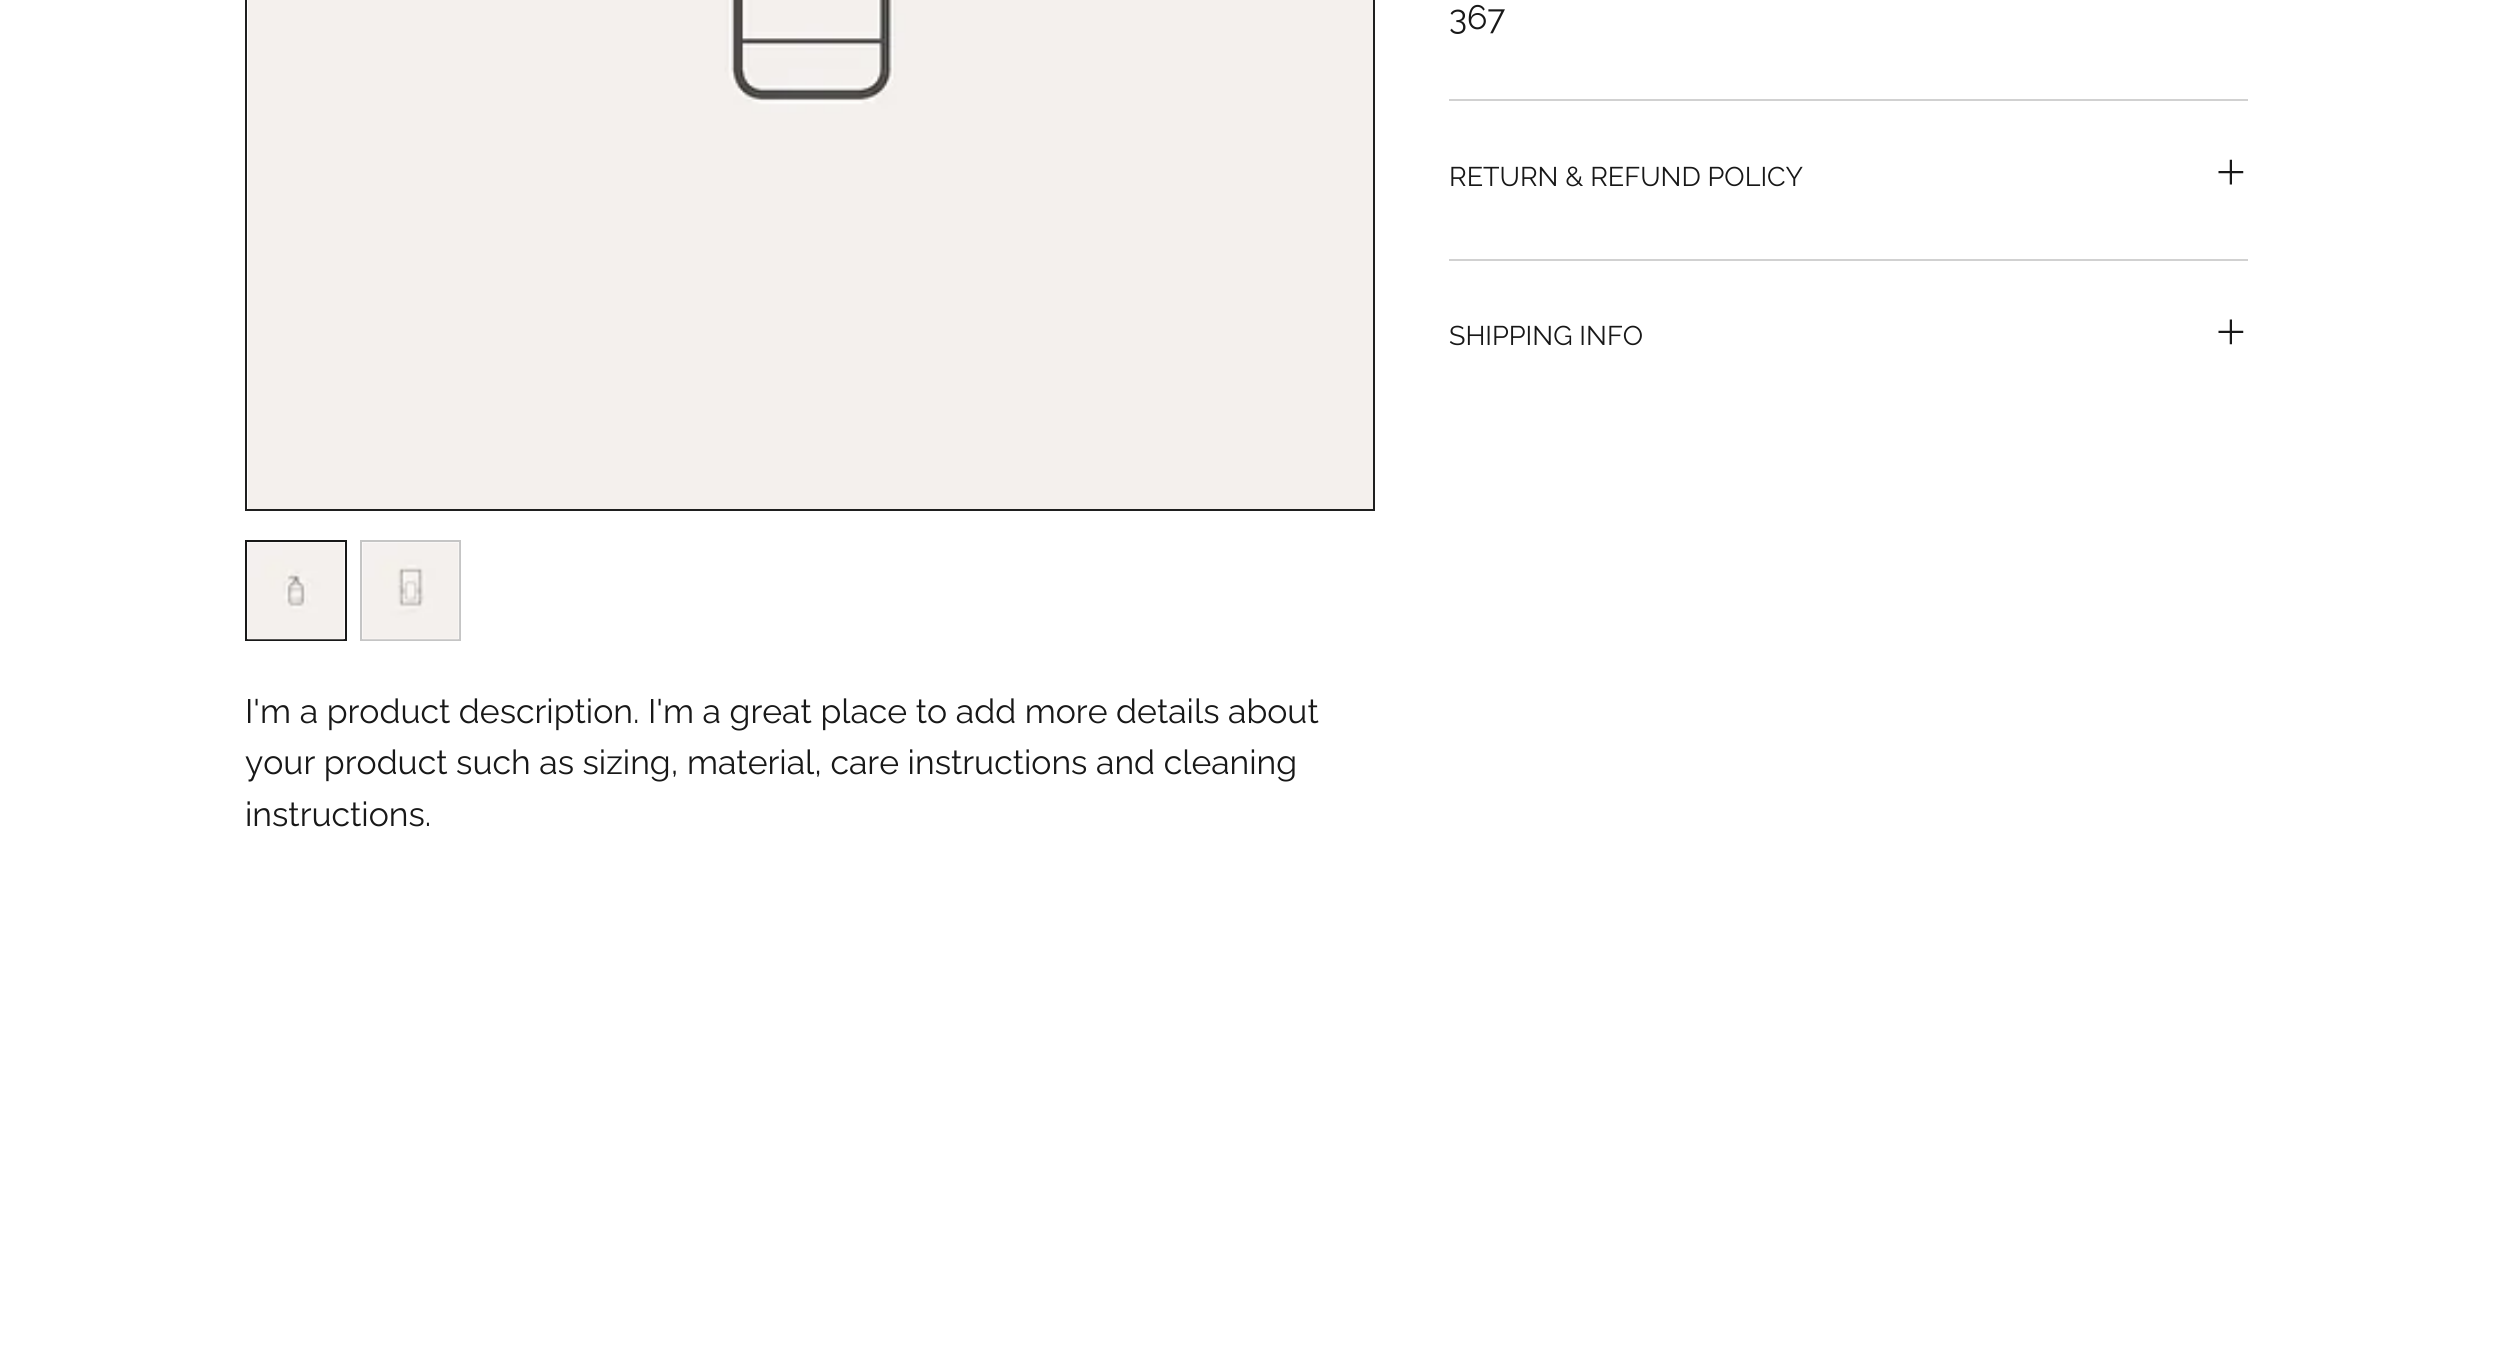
#include <cairo/cairo.h>
#include <math.h>
#include <stddef.h>

typedef struct { double x, y; const char *s; } line_t;
static cairo_t *cr;

static void rgb(unsigned color)
{
	cairo_set_source_rgb(cr, (color >> 16) / 255.0, (color >> 8 & 255) / 255.0, (color & 255) / 255.0);
}

static void image(const char *path, double x, double y, double w, double h)
{
	cairo_surface_t *image = cairo_image_surface_create_from_png(path);
	cairo_save(cr);
	cairo_set_source_surface(cr, image, x, y);
	cairo_rectangle(cr, x, y, w, h);
	cairo_fill(cr);
	cairo_restore(cr);
	cairo_surface_destroy(image);
}

int main(void) {
	cairo_surface_t *surface = cairo_image_surface_create(CAIRO_FORMAT_RGB24, 2493, 1361);
	cr = cairo_create(surface);
	cairo_font_options_t *options = cairo_font_options_create();
	cairo_font_options_set_hint_metrics(options, CAIRO_HINT_METRICS_OFF);
	cairo_font_options_set_hint_style(options, CAIRO_HINT_STYLE_NONE);
	cairo_set_font_options(cr, options);
	cairo_set_miter_limit(cr, 4);
	rgb(0xffffff);
	cairo_paint(cr);
	rgb(0xd1d1d1);
	cairo_rectangle(cr, 1449, 99, 799, 2);
	cairo_fill(cr);
	cairo_rectangle(cr, 1449, 259, 799, 2);
	cairo_fill(cr);
	image("img/1.png", 2218, 159, 26, 26);
	image("img/2.png", 2218, 319, 26, 26);
	cairo_rectangle(cr, 246, -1, 1128, 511);
	rgb(0x1f1f1f);
	cairo_stroke(cr);
	image("img/3.png", 248, 0, 1125, 509);
	cairo_rectangle(cr, 246, 541, 100, 99);
	rgb(0x181818);
	cairo_stroke(cr);
	image("img/4.png", 247, 542, 98, 98);
	cairo_rectangle(cr, 361, 541, 99, 99);
	rgb(0xc5c5c5);
	cairo_stroke(cr);
	image("img/5.png", 362, 542, 98, 98);
	cairo_select_font_face(cr, "Raleway", CAIRO_FONT_SLANT_NORMAL, CAIRO_FONT_WEIGHT_NORMAL);
	cairo_set_font_size(cr, 33.75);
	rgb(0x181818);
	cairo_move_to(cr, 1449, 29);
	cairo_show_text(cr, "367");
	cairo_set_font_size(cr, 27);
	cairo_move_to(cr, 1449, 186);
	cairo_show_text(cr, "RETURN & REFUND POLICY");
	cairo_move_to(cr, 1449, 345);
	cairo_show_text(cr, "SHIPPING INFO");
	cairo_set_font_size(cr, 33.75);
	{
		static const line_t items[] = {
			{245, 723, "I'm a product description. I'm a great place to add more details about"},
			{245, 774, "your product such as sizing, material, care instructions and cleaning"},
			{245, 826, "instructions."},
		};
		for (size_t i = 0; i < sizeof items / sizeof *items; i++) {
			cairo_move_to(cr, items[i].x, items[i].y);
			cairo_show_text(cr, items[i].s);
		}
	}
	cairo_surface_write_to_png(surface, "page.png");
	cairo_font_options_destroy(options);
	cairo_destroy(cr);
	cairo_surface_destroy(surface);
	return 0;
}
